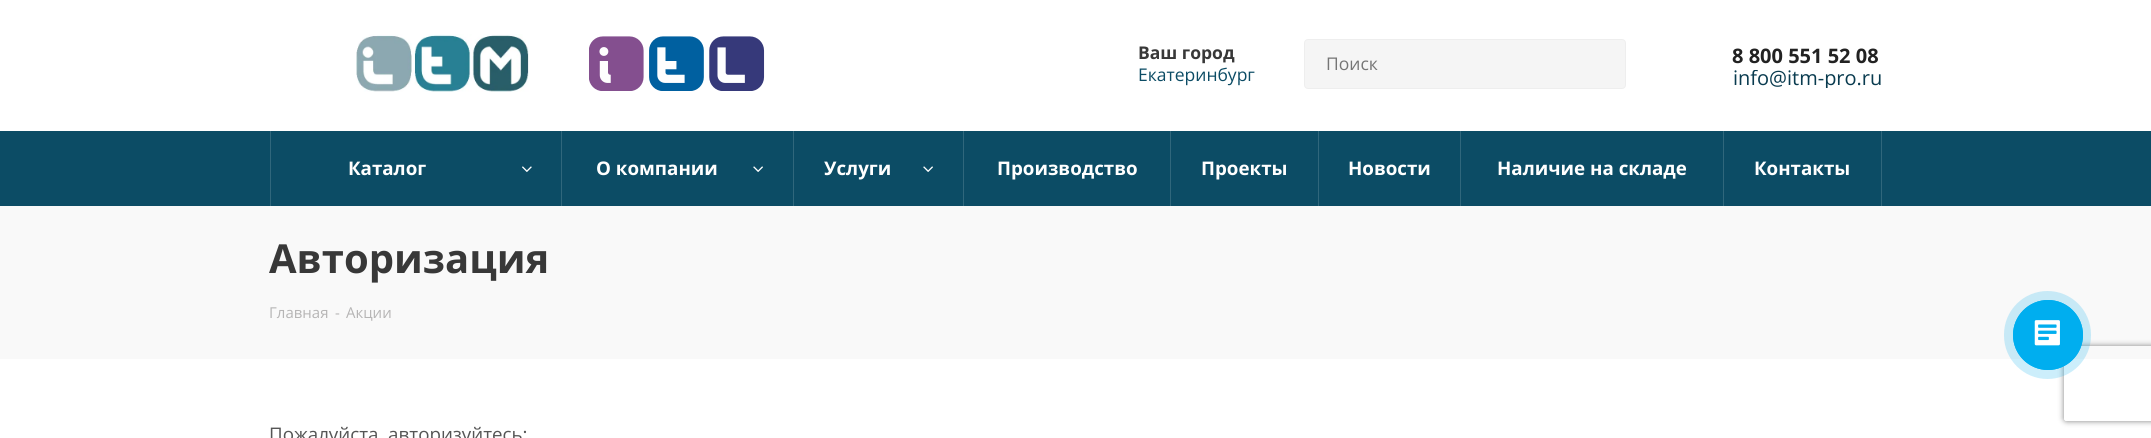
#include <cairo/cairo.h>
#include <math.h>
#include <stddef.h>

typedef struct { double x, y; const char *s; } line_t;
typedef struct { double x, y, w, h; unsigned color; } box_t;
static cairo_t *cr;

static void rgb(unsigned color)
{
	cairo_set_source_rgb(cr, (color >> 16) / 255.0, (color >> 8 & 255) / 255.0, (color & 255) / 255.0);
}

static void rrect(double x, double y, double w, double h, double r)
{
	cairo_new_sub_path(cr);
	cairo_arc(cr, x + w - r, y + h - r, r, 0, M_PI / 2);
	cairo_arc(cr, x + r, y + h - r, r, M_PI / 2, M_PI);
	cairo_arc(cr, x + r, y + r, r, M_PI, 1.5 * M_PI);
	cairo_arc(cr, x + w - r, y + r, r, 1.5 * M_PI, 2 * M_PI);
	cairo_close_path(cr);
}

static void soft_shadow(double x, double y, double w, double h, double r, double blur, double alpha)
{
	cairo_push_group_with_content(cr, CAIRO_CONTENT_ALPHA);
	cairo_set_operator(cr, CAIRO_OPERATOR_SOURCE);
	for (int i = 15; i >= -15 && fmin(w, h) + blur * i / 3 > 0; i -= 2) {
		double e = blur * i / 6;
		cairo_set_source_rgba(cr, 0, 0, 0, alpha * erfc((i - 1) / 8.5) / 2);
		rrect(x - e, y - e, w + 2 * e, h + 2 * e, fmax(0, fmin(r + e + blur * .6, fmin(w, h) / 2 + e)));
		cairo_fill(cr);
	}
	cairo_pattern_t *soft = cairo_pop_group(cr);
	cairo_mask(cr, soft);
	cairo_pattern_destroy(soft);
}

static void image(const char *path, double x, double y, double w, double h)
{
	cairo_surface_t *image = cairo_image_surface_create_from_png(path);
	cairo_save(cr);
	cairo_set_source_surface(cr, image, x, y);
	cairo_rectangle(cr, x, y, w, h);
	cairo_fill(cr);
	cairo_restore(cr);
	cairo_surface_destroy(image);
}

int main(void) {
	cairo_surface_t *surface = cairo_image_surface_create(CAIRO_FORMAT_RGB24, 2151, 438);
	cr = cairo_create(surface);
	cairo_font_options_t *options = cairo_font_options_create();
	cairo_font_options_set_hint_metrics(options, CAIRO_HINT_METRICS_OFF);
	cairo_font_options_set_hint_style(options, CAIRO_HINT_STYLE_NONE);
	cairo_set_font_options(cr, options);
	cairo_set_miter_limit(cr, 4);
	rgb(0xffffff);
	cairo_paint(cr);
	image("img/1.png", 356, 34, 173, 58);
	image("img/2.png", 589, 36, 176, 55);
	rgb(0xf5f5f5);
	rrect(1304.5, 39.5, 321, 49, 3.5);
	cairo_fill_preserve(cr);
	rgb(0xeeeeee);
	cairo_set_line_width(cr, 1);
	cairo_stroke(cr);
	{
		static const box_t items[] = {
			{0, 131, 2151, 75, 0x0c4c65},
			{270, 131, 1, 75, 0x30677c},
			{561, 131, 1, 75, 0x30677c},
		};
		for (size_t i = 0; i < sizeof items / sizeof *items; i++) {
			rgb(items[i].color);
			cairo_rectangle(cr, items[i].x, items[i].y, items[i].w, items[i].h);
			cairo_fill(cr);
		}
	}
	image("img/3.png", 522, 166, 10, 6);
	cairo_rectangle(cr, 793, 131, 1, 75);
	cairo_fill(cr);
	image("img/4.png", 753, 166, 10, 6);
	cairo_rectangle(cr, 963, 131, 1, 75);
	cairo_fill(cr);
	image("img/4.png", 923, 166, 10, 6);
	{
		static const box_t items[] = {
			{1170, 131, 1, 75, 0x30677c},
			{1318, 131, 1, 75, 0x30677c},
			{1460, 131, 1, 75, 0x30677c},
			{1723, 131, 1, 75, 0x30677c},
			{1881, 131, 1, 75, 0x30677c},
			{0, 206, 2151, 153, 0xf9f9f9},
		};
		for (size_t i = 0; i < sizeof items / sizeof *items; i++) {
			rgb(items[i].color);
			cairo_rectangle(cr, items[i].x, items[i].y, items[i].w, items[i].h);
			cairo_fill(cr);
		}
	}
	cairo_save(cr);
	cairo_set_fill_rule(cr, CAIRO_FILL_RULE_EVEN_ODD);
	cairo_new_path(cr);
	cairo_move_to(cr, 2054, 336);
	cairo_line_to(cr, 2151, 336);
	cairo_line_to(cr, 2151, 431);
	cairo_line_to(cr, 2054, 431);
	cairo_close_path(cr);
	cairo_move_to(cr, 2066.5, 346);
	cairo_line_to(cr, 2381.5, 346);
	cairo_curve_to(cr, 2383, 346, 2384, 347, 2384, 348.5);
	cairo_line_to(cr, 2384, 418.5);
	cairo_curve_to(cr, 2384, 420, 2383, 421, 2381.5, 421);
	cairo_line_to(cr, 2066.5, 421);
	cairo_curve_to(cr, 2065, 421, 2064, 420, 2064, 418.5);
	cairo_line_to(cr, 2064, 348.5);
	cairo_curve_to(cr, 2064, 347, 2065, 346, 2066.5, 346);
	cairo_close_path(cr);
	cairo_clip(cr);
	rgb(0x808080);
	soft_shadow(2064, 346, 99, 75, 2.5, 3, 1);
	cairo_restore(cr);
	cairo_set_source_rgba(cr, 0, 0.682, 0.937, 0.2);
	rrect(2004, 291, 87, 88, 43.5);
	cairo_fill(cr);
	cairo_arc(cr, 2048, 335, 34.5, 0, 2 * M_PI);
	rgb(0x00aeef);
	cairo_stroke(cr);
	cairo_arc(cr, 2048, 335, 35, 0, 2 * M_PI);
	cairo_fill(cr);
	image("img/5.png", 2034, 320, 26, 26);
	cairo_select_font_face(cr, "Open Sans", CAIRO_FONT_SLANT_NORMAL, CAIRO_FONT_WEIGHT_BOLD);
	cairo_set_font_size(cr, 17.5);
	rgb(0x383838);
	cairo_move_to(cr, 1138, 59);
	cairo_show_text(cr, "Ваш город");
	cairo_select_font_face(cr, "Open Sans", CAIRO_FONT_SLANT_NORMAL, CAIRO_FONT_WEIGHT_NORMAL);
	rgb(0x0c4c65);
	cairo_move_to(cr, 1138, 81);
	cairo_show_text(cr, "Екатеринбург");
	rgb(0x757575);
	cairo_move_to(cr, 1326, 70);
	cairo_show_text(cr, "Поиск");
	cairo_select_font_face(cr, "Open Sans", CAIRO_FONT_SLANT_NORMAL, CAIRO_FONT_WEIGHT_BOLD);
	cairo_set_font_size(cr, 20);
	rgb(0x222222);
	cairo_move_to(cr, 1732, 63);
	cairo_show_text(cr, "8 800 551 52 08");
	cairo_save(cr);
	cairo_rectangle(cr, 1733, 70, 150, 18);
	cairo_clip(cr);
	cairo_select_font_face(cr, "Open Sans", CAIRO_FONT_SLANT_NORMAL, CAIRO_FONT_WEIGHT_NORMAL);
	rgb(0x093b4f);
	cairo_move_to(cr, 1733, 85);
	cairo_show_text(cr, "info@itm-pro.ru");
	cairo_restore(cr);
	cairo_set_font_size(cr, 18.75);
	rgb(0xffffff);
	{
		static const line_t items[] = {
			{348, 175, "Каталог"},
			{596, 175, "О компании"},
			{824, 175, "Услуги"},
			{997, 175, "Производство"},
			{1201, 175, "Проекты"},
			{1348, 175, "Новости"},
			{1497, 175, "Наличие на складе"},
			{1754, 175, "Контакты"},
		};
		for (size_t i = 0; i < sizeof items / sizeof *items; i++) {
			cairo_move_to(cr, items[i].x, items[i].y);
			cairo_show_text(cr, items[i].s);
		}
	}
	cairo_set_font_size(cr, 40);
	rgb(0x383838);
	cairo_move_to(cr, 269, 273);
	cairo_show_text(cr, "Авторизация");
	cairo_select_font_face(cr, "Open Sans", CAIRO_FONT_SLANT_NORMAL, CAIRO_FONT_WEIGHT_NORMAL);
	cairo_set_font_size(cr, 15);
	rgb(0xb6b5b5);
	{
		static const line_t items[] = {
			{269, 318, "Главная"},
			{335, 318, "-"},
			{346, 318, "Акции"},
		};
		for (size_t i = 0; i < sizeof items / sizeof *items; i++) {
			cairo_move_to(cr, items[i].x, items[i].y);
			cairo_show_text(cr, items[i].s);
		}
	}
	cairo_set_font_size(cr, 18.75);
	rgb(0x555555);
	cairo_move_to(cr, 269, 441);
	cairo_show_text(cr, "Пожалуйста, авторизуйтесь:");
	cairo_surface_write_to_png(surface, "page.png");
	cairo_font_options_destroy(options);
	cairo_destroy(cr);
	cairo_surface_destroy(surface);
	return 0;
}
